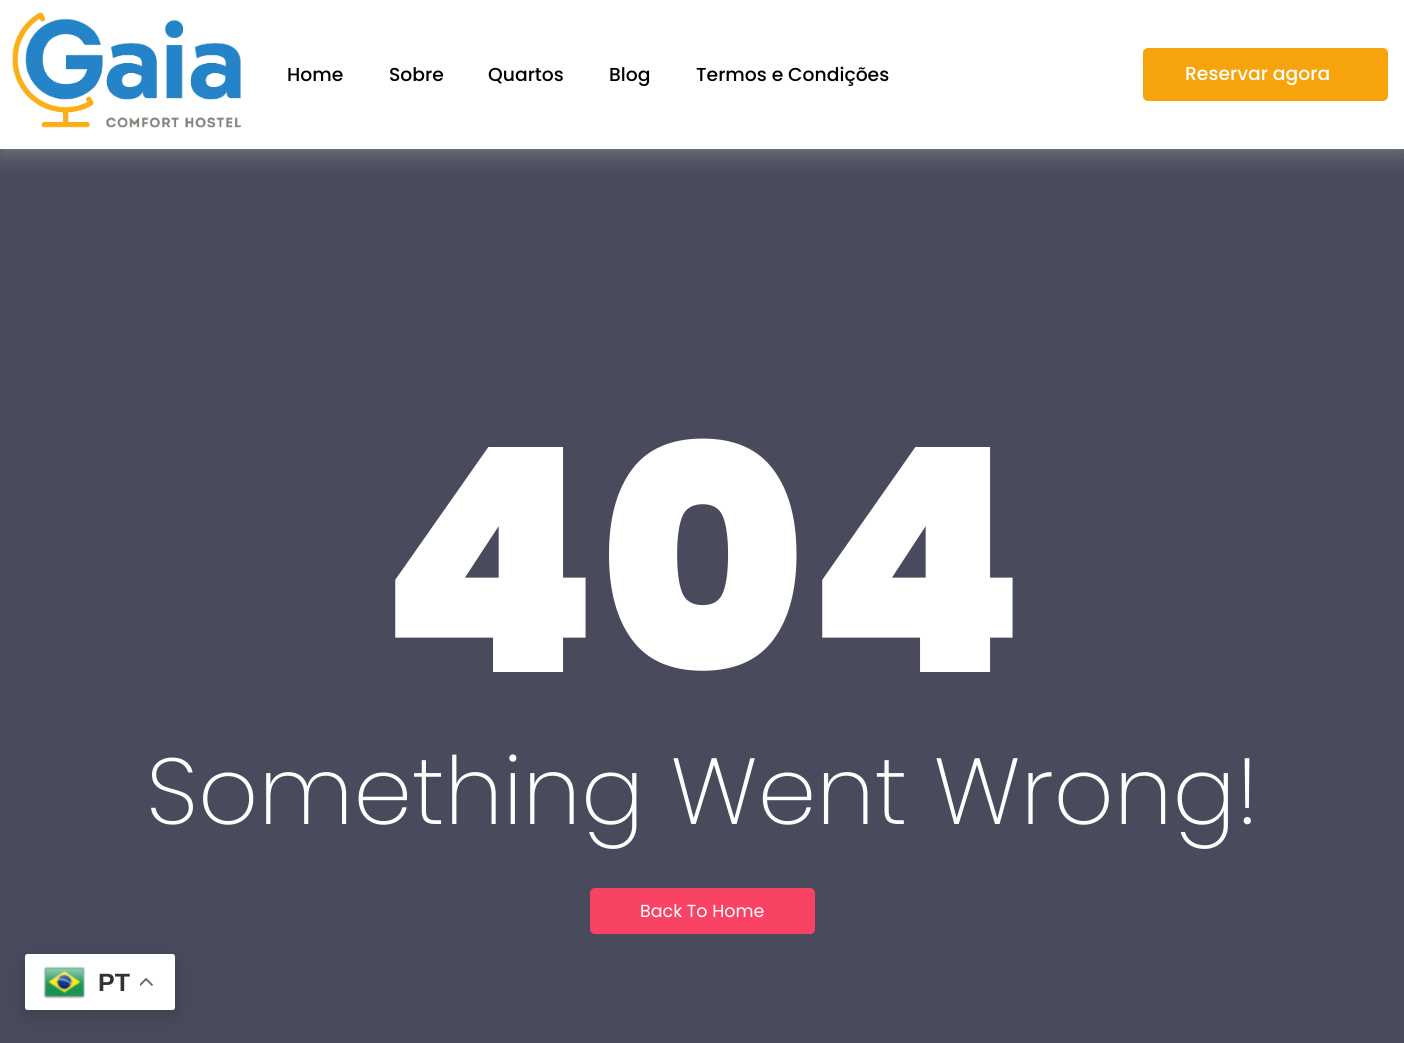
#include <cairo/cairo.h>
#include <math.h>
#include <stddef.h>

typedef struct { double x, y; const char *s; } line_t;
static cairo_t *cr;

static void rgb(unsigned color)
{
	cairo_set_source_rgb(cr, (color >> 16) / 255.0, (color >> 8 & 255) / 255.0, (color & 255) / 255.0);
}

static void rrect(double x, double y, double w, double h, double r)
{
	cairo_new_sub_path(cr);
	cairo_arc(cr, x + w - r, y + h - r, r, 0, M_PI / 2);
	cairo_arc(cr, x + r, y + h - r, r, M_PI / 2, M_PI);
	cairo_arc(cr, x + r, y + r, r, M_PI, 1.5 * M_PI);
	cairo_arc(cr, x + w - r, y + r, r, 1.5 * M_PI, 2 * M_PI);
	cairo_close_path(cr);
}

static void soft_shadow(double x, double y, double w, double h, double r, double blur, double alpha)
{
	cairo_push_group_with_content(cr, CAIRO_CONTENT_ALPHA);
	cairo_set_operator(cr, CAIRO_OPERATOR_SOURCE);
	for (int i = 15; i >= -15 && fmin(w, h) + blur * i / 3 > 0; i -= 2) {
		double e = blur * i / 6;
		cairo_set_source_rgba(cr, 0, 0, 0, alpha * erfc((i - 1) / 8.5) / 2);
		rrect(x - e, y - e, w + 2 * e, h + 2 * e, fmax(0, fmin(r + e + blur * .6, fmin(w, h) / 2 + e)));
		cairo_fill(cr);
	}
	cairo_pattern_t *soft = cairo_pop_group(cr);
	cairo_mask(cr, soft);
	cairo_pattern_destroy(soft);
}

static void image(const char *path, double x, double y, double w, double h)
{
	cairo_surface_t *image = cairo_image_surface_create_from_png(path);
	cairo_save(cr);
	cairo_set_source_surface(cr, image, x, y);
	cairo_rectangle(cr, x, y, w, h);
	cairo_fill(cr);
	cairo_restore(cr);
	cairo_surface_destroy(image);
}

int main(void) {
	cairo_surface_t *surface = cairo_image_surface_create(CAIRO_FORMAT_RGB24, 1404, 1043);
	cr = cairo_create(surface);
	cairo_font_options_t *options = cairo_font_options_create();
	cairo_font_options_set_hint_metrics(options, CAIRO_HINT_METRICS_OFF);
	cairo_font_options_set_hint_style(options, CAIRO_HINT_STYLE_NONE);
	cairo_set_font_options(cr, options);
	cairo_set_miter_limit(cr, 4);
	rgb(0x494b5c);
	cairo_paint(cr);
	rgb(0xcbcbcb);
	soft_shadow(0, 0, 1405, 149, 0, 12.5, 0.5);
	rgb(0xffffff);
	cairo_rectangle(cr, 0, 0, 1404, 149);
	cairo_fill(cr);
	image("img/1.png", 12, 12, 229, 116);
	rgb(0xf7a30b);
	rrect(1143, 48, 245, 53, 5);
	cairo_fill(cr);
	rgb(0xf84365);
	rrect(590, 888, 225, 46, 5);
	cairo_fill(cr);
	rgb(0x000000);
	soft_shadow(25, 960, 150, 56, 2.5, 9.5, 0.15);
	rgb(0xffffff);
	rrect(25, 954, 150, 56, 2.5);
	cairo_fill(cr);
	image("img/2.png", 43, 966, 42, 33);
	image("img/3.png", 140, 977, 13, 9);
	cairo_select_font_face(cr, "Poppins Medium", CAIRO_FONT_SLANT_NORMAL, CAIRO_FONT_WEIGHT_NORMAL);
	cairo_set_font_size(cr, 18.75);
	rgb(0x000000);
	{
		static const line_t items[] = {
			{287, 81, "Home"},
			{389, 81, "Sobre"},
			{488, 81, "Quartos"},
			{609, 81, "Blog"},
			{696, 81, "Termos e Condições"},
		};
		for (size_t i = 0; i < sizeof items / sizeof *items; i++) {
			cairo_move_to(cr, items[i].x, items[i].y);
			cairo_show_text(cr, items[i].s);
		}
	}
	rgb(0xffffff);
	cairo_move_to(cr, 1185, 80);
	cairo_show_text(cr, "Reservar agora");
	cairo_select_font_face(cr, "Poppins Black", CAIRO_FONT_SLANT_NORMAL, CAIRO_FONT_WEIGHT_NORMAL);
	cairo_set_font_size(cr, 312.5);
	cairo_move_to(cr, 379, 672);
	cairo_show_text(cr, "404");
	cairo_select_font_face(cr, "Poppins ExtraLight", CAIRO_FONT_SLANT_NORMAL, CAIRO_FONT_WEIGHT_NORMAL);
	cairo_set_font_size(cr, 93.75);
	cairo_move_to(cr, 146, 824);
	cairo_show_text(cr, "Something Went Wrong!");
	cairo_select_font_face(cr, "Poppins", CAIRO_FONT_SLANT_NORMAL, CAIRO_FONT_WEIGHT_NORMAL);
	cairo_set_font_size(cr, 17.5);
	cairo_move_to(cr, 640, 917);
	cairo_show_text(cr, "Back To Home");
	cairo_select_font_face(cr, "Liberation Sans", CAIRO_FONT_SLANT_NORMAL, CAIRO_FONT_WEIGHT_BOLD);
	cairo_set_font_size(cr, 25);
	rgb(0x333333);
	cairo_move_to(cr, 98, 991);
	cairo_show_text(cr, "PT");
	cairo_surface_write_to_png(surface, "page.png");
	cairo_font_options_destroy(options);
	cairo_destroy(cr);
	cairo_surface_destroy(surface);
	return 0;
}
